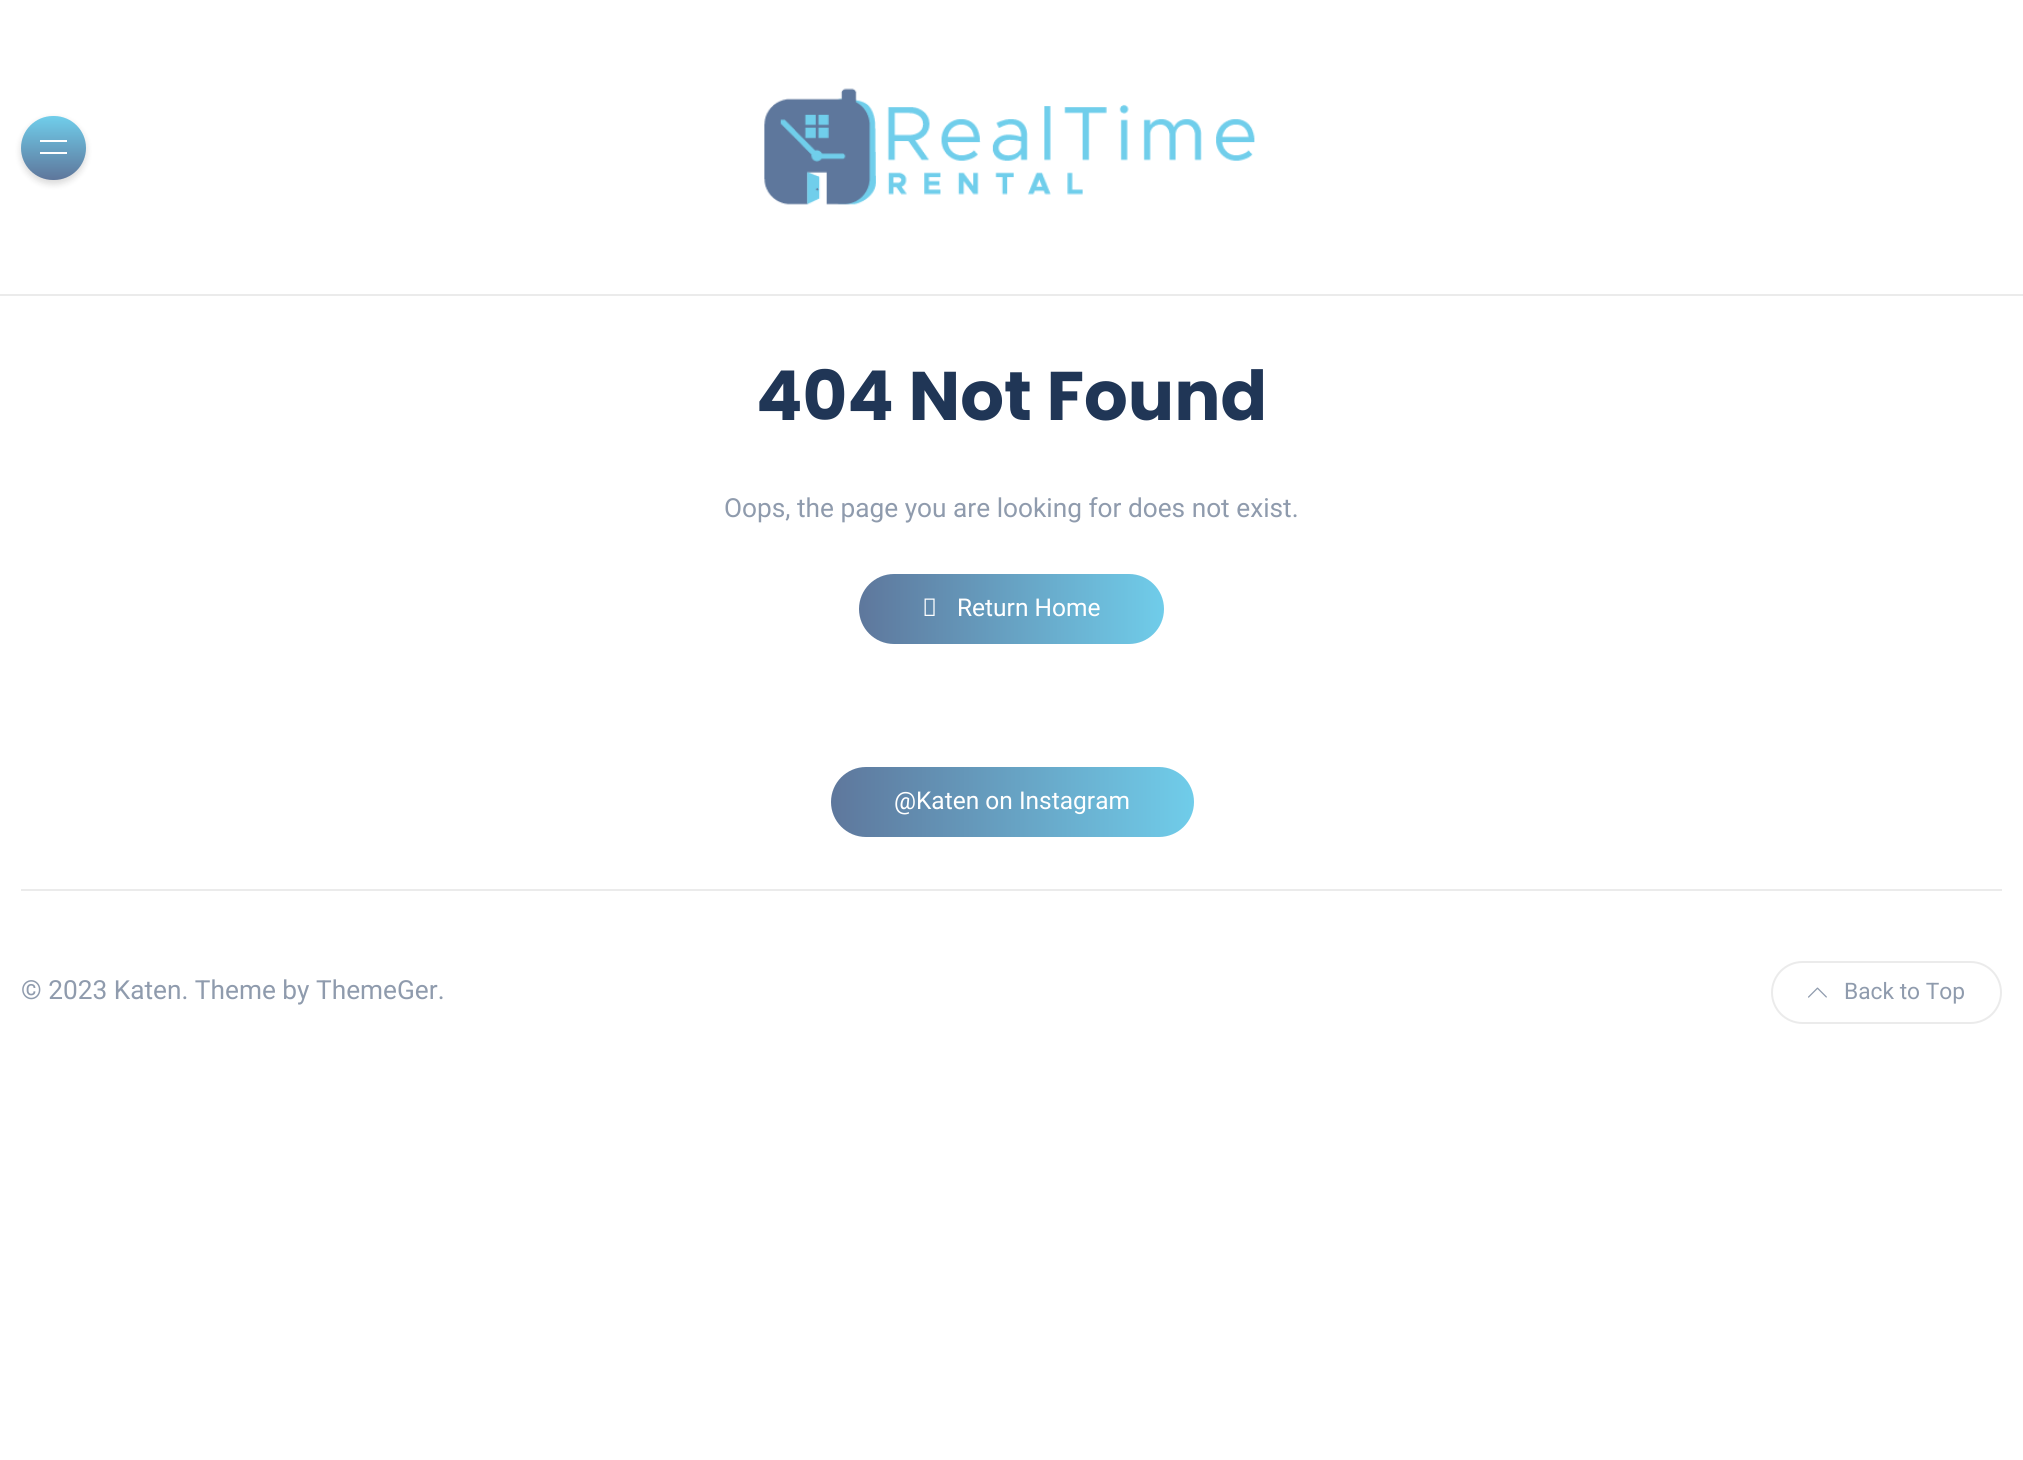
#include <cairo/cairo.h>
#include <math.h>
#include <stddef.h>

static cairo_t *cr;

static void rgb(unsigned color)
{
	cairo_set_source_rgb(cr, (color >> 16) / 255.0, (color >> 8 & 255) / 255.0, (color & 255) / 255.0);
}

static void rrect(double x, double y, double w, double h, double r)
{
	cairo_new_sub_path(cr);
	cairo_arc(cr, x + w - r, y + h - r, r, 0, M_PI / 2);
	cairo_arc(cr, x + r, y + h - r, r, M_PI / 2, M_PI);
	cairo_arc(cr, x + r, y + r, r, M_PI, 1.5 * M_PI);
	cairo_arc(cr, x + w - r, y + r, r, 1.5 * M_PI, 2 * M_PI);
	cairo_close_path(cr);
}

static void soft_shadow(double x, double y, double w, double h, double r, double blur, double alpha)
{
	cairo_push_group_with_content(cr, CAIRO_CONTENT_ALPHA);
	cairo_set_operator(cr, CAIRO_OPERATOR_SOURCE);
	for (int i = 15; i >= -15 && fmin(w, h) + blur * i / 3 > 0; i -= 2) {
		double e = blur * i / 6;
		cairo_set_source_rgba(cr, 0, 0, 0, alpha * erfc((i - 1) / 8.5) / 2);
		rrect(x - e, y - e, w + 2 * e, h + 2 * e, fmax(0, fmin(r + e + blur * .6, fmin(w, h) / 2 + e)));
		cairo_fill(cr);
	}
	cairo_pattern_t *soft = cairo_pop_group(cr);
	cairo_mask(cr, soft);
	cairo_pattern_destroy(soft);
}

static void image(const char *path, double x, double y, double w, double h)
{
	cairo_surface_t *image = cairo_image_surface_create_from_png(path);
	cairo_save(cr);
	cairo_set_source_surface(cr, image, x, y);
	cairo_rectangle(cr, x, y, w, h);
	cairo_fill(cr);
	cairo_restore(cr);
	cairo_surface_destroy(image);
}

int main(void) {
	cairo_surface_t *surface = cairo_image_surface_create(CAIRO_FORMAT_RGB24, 2023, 1460);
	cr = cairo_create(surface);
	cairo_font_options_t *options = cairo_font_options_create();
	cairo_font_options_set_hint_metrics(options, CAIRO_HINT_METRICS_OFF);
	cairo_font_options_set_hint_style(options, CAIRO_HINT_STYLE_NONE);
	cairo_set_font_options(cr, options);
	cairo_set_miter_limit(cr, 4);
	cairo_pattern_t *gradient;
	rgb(0xffffff);
	cairo_paint(cr);
	rgb(0xebebeb);
	cairo_rectangle(cr, 0, 294, 2023, 2);
	cairo_fill(cr);
	rgb(0x000000);
	soft_shadow(21, 119, 65, 65, 32.5, 3.5, 0.15);
	gradient = cairo_pattern_create_linear(53, 245, 53, 116);
	cairo_pattern_add_color_stop_rgba(gradient, 0, 0.439, 0.808, 0.922, 1);
	cairo_pattern_add_color_stop_rgba(gradient, 0.51, 0.369, 0.467, 0.612, 1);
	cairo_pattern_add_color_stop_rgba(gradient, 1, 0.439, 0.808, 0.922, 1);
	cairo_set_source(cr, gradient);
	cairo_pattern_destroy(gradient);
	rrect(21, 116, 65, 64, 32);
	cairo_fill(cr);
	rgb(0xffffff);
	cairo_rectangle(cr, 40, 140, 27, 2);
	cairo_fill(cr);
	cairo_rectangle(cr, 40, 152, 27, 2);
	cairo_fill(cr);
	image("img/1.png", 764, 88, 491, 117);
	gradient = cairo_pattern_create_linear(859, 609, 1468, 609);
	cairo_pattern_add_color_stop_rgba(gradient, 0, 0.369, 0.467, 0.612, 1);
	cairo_pattern_add_color_stop_rgba(gradient, 0.51, 0.439, 0.808, 0.922, 1);
	cairo_pattern_add_color_stop_rgba(gradient, 1, 0.369, 0.467, 0.612, 1);
	cairo_set_source(cr, gradient);
	cairo_pattern_destroy(gradient);
	rrect(859, 574, 305, 70, 35);
	cairo_fill(cr);
	image("img/2.png", 924, 598, 11, 18);
	gradient = cairo_pattern_create_linear(831, 802, 1555, 802);
	cairo_pattern_add_color_stop_rgba(gradient, 0, 0.369, 0.467, 0.612, 1);
	cairo_pattern_add_color_stop_rgba(gradient, 0.51, 0.439, 0.808, 0.922, 1);
	cairo_pattern_add_color_stop_rgba(gradient, 1, 0.369, 0.467, 0.612, 1);
	cairo_set_source(cr, gradient);
	cairo_pattern_destroy(gradient);
	rrect(831, 767, 363, 70, 35);
	cairo_fill(cr);
	rgb(0xebebeb);
	cairo_rectangle(cr, 21, 889, 1981, 2);
	cairo_fill(cr);
	rrect(1772, 962, 229, 61, 30.5);
	cairo_stroke(cr);
	image("img/3.png", 1808, 987, 19, 11);
	cairo_select_font_face(cr, "Poppins", CAIRO_FONT_SLANT_NORMAL, CAIRO_FONT_WEIGHT_BOLD);
	cairo_set_font_size(cr, 68.75);
	rgb(0x203656);
	cairo_move_to(cr, 756, 420);
	cairo_show_text(cr, "404 Not Found");
	cairo_select_font_face(cr, "Roboto", CAIRO_FONT_SLANT_NORMAL, CAIRO_FONT_WEIGHT_NORMAL);
	cairo_set_font_size(cr, 26.25);
	rgb(0x8f9bad);
	cairo_move_to(cr, 724, 517);
	cairo_show_text(cr, "Oops, the page you are looking for does not exist.");
	cairo_set_font_size(cr, 24.5);
	rgb(0xffffff);
	cairo_move_to(cr, 957, 616);
	cairo_show_text(cr, "Return Home");
	cairo_move_to(cr, 894, 809);
	cairo_show_text(cr, "@Katen on Instagram");
	cairo_set_font_size(cr, 26.25);
	rgb(0x8f9bad);
	cairo_move_to(cr, 21, 999);
	cairo_show_text(cr, "© 2023 Katen. Theme by ThemeGer.");
	cairo_set_font_size(cr, 22.75);
	cairo_move_to(cr, 1844, 999);
	cairo_show_text(cr, "Back to Top");
	cairo_surface_write_to_png(surface, "page.png");
	cairo_font_options_destroy(options);
	cairo_destroy(cr);
	cairo_surface_destroy(surface);
	return 0;
}
